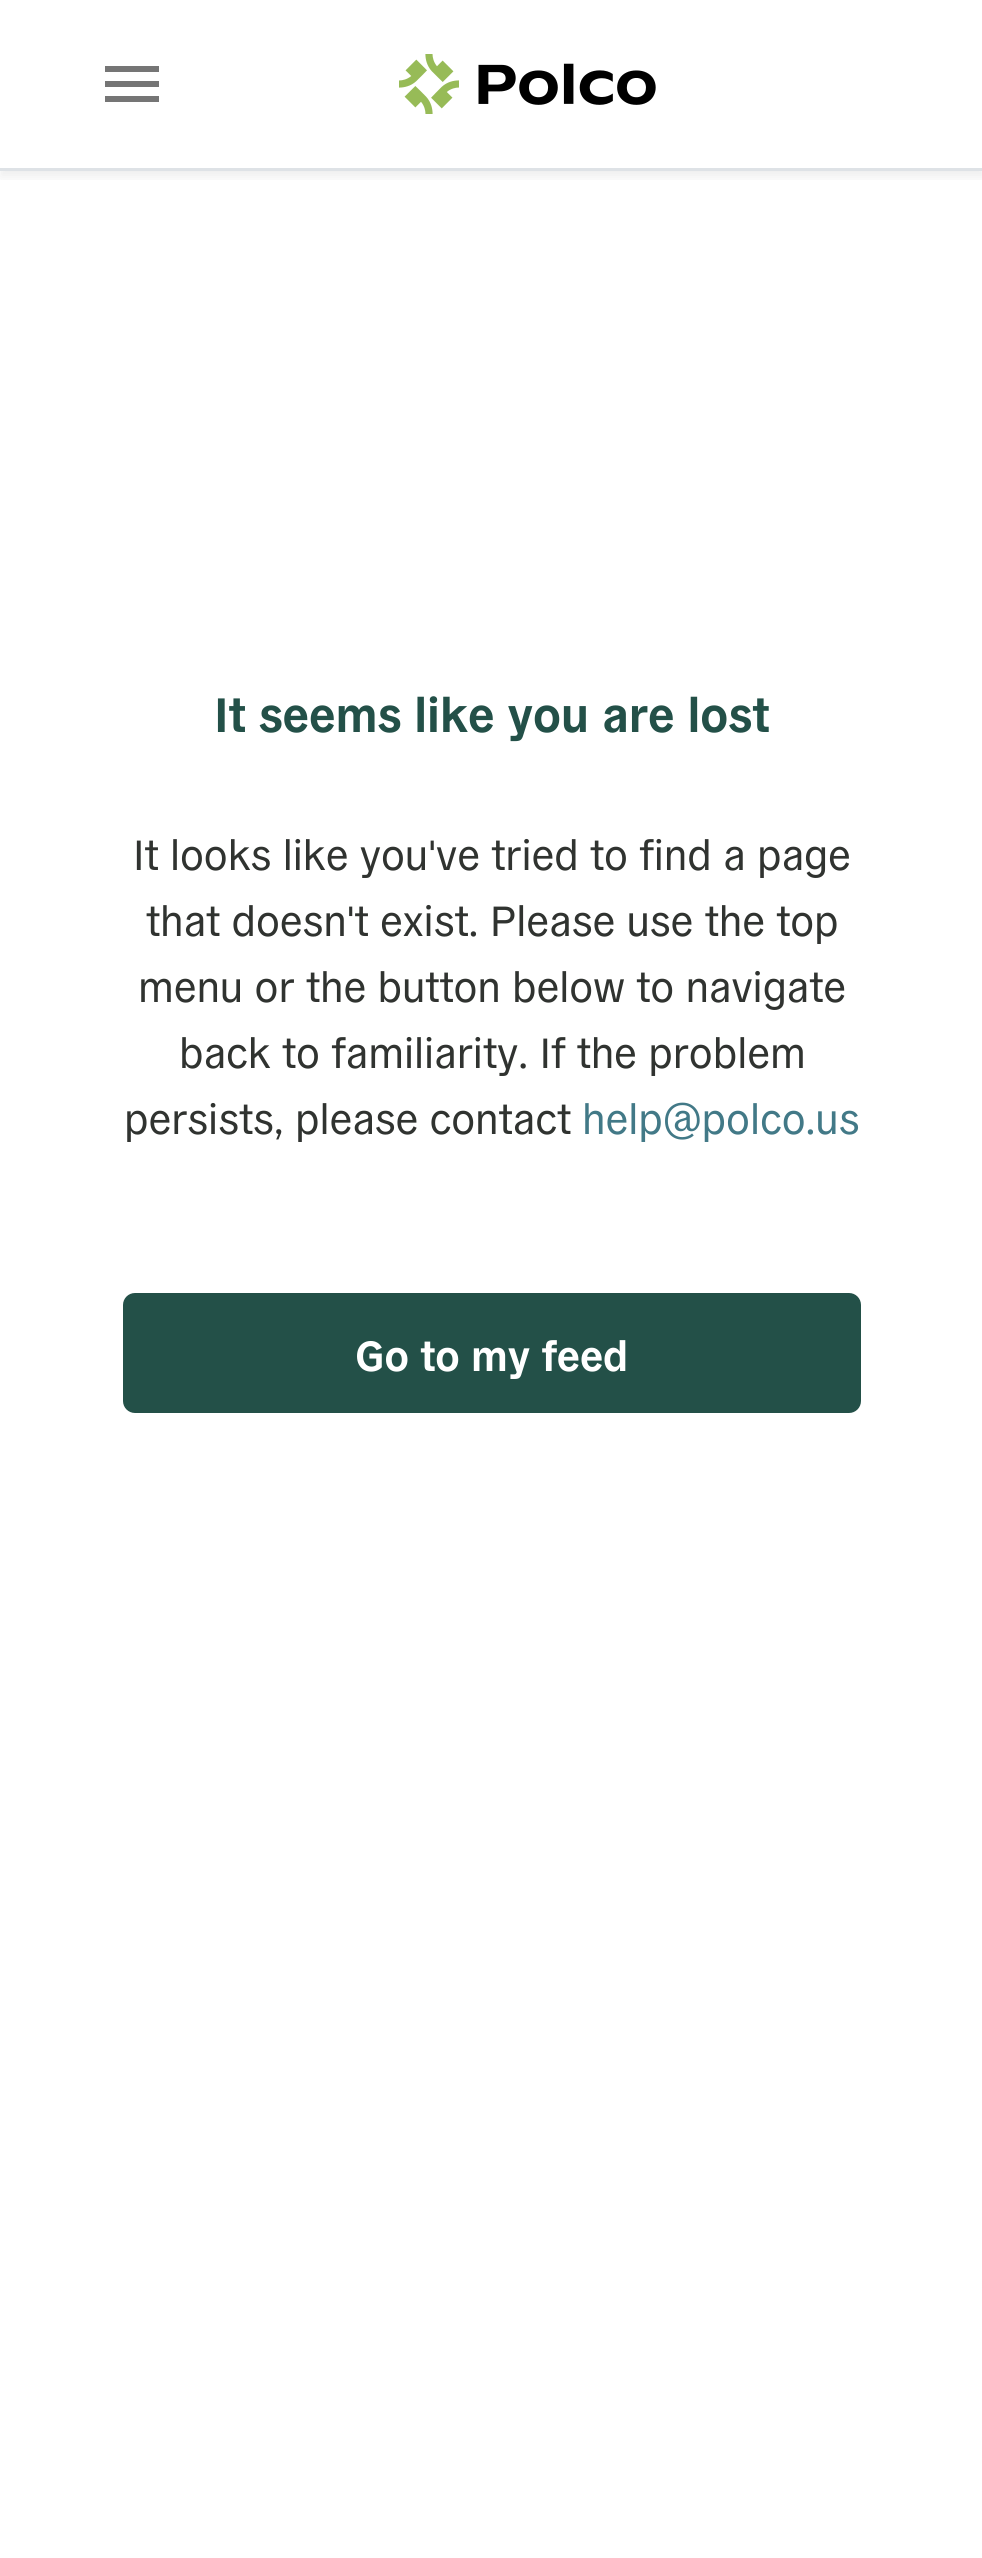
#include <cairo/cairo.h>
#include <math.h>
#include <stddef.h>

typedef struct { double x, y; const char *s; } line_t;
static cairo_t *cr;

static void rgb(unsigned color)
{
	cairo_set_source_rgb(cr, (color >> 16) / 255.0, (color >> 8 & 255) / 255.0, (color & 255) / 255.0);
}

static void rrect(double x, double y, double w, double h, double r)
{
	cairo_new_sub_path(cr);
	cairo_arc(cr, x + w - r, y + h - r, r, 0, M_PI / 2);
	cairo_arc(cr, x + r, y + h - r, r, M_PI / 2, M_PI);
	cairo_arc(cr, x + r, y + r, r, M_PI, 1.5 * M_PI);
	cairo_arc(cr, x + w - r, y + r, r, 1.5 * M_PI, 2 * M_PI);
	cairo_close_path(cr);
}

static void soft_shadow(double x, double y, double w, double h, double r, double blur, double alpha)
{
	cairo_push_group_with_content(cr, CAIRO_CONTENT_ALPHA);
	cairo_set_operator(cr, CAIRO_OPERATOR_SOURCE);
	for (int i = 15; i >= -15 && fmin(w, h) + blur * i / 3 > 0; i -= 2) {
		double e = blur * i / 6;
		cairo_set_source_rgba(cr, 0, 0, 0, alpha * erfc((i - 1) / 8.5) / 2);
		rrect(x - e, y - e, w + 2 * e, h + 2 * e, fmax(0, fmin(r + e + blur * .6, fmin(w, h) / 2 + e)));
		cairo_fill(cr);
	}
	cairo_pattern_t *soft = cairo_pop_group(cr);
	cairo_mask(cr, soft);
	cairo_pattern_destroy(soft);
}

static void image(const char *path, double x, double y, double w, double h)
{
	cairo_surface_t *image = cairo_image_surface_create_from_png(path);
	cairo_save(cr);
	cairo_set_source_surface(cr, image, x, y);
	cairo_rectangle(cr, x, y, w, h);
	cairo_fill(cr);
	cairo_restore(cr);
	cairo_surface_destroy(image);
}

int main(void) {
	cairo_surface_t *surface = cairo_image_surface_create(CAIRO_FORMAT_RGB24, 982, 2558);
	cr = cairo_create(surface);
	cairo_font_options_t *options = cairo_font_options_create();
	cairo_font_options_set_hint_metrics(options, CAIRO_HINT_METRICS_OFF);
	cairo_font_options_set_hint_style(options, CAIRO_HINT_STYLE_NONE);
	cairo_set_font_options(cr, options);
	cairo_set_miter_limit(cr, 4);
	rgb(0xffffff);
	cairo_paint(cr);
	cairo_save(cr);
	cairo_rectangle(cr, 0, 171, 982, 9);
	cairo_clip(cr);
	rgb(0x000000);
	soft_shadow(0, 6, 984, 171, 0, 6, 0.07);
	cairo_restore(cr);
	rgb(0xdee2e6);
	cairo_rectangle(cr, 0, 168, 982, 3);
	cairo_fill(cr);
	rgb(0x757575);
	cairo_new_path(cr);
	cairo_move_to(cr, 105, 66);
	cairo_line_to(cr, 159, 66);
	cairo_line_to(cr, 159, 72);
	cairo_line_to(cr, 105, 72);
	cairo_close_path(cr);
	cairo_move_to(cr, 105, 87);
	cairo_line_to(cr, 105, 81);
	cairo_line_to(cr, 159, 81);
	cairo_line_to(cr, 159, 87);
	cairo_close_path(cr);
	cairo_move_to(cr, 105, 102);
	cairo_line_to(cr, 105, 96);
	cairo_line_to(cr, 159, 96);
	cairo_line_to(cr, 159, 102);
	cairo_close_path(cr);
	cairo_fill(cr);
	image("img/1.png", 399, 54, 257, 60);
	rgb(0x235048);
	rrect(124.5, 1294.5, 735, 117, 10.5);
	cairo_fill_preserve(cr);
	cairo_set_line_width(cr, 3);
	cairo_stroke(cr);
	cairo_select_font_face(cr, "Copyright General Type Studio", CAIRO_FONT_SLANT_NORMAL, CAIRO_FONT_WEIGHT_BOLD);
	cairo_set_font_size(cr, 48);
	cairo_move_to(cr, 214, 732);
	cairo_show_text(cr, "It seems like you are lost");
	cairo_select_font_face(cr, "Copyright General Type Studio", CAIRO_FONT_SLANT_NORMAL, CAIRO_FONT_WEIGHT_NORMAL);
	cairo_set_font_size(cr, 42);
	rgb(0x303330);
	{
		static const line_t items[] = {
			{133, 870, "It looks like you've tried to find a page"},
			{146, 936, "that doesn't exist. Please use the top"},
			{138, 1002, "menu or the button below to navigate"},
			{179, 1068, "back to familiarity. If the problem"},
			{124, 1134, "persists, please contact"},
		};
		for (size_t i = 0; i < sizeof items / sizeof *items; i++) {
			cairo_move_to(cr, items[i].x, items[i].y);
			cairo_show_text(cr, items[i].s);
		}
	}
	rgb(0x427987);
	cairo_move_to(cr, 582, 1134);
	cairo_show_text(cr, "help@polco.us");
	cairo_select_font_face(cr, "Copyright General Type Studio", CAIRO_FONT_SLANT_NORMAL, CAIRO_FONT_WEIGHT_BOLD);
	rgb(0xffffff);
	cairo_move_to(cr, 355, 1371);
	cairo_show_text(cr, "Go to my feed");
	cairo_surface_write_to_png(surface, "page.png");
	cairo_font_options_destroy(options);
	cairo_destroy(cr);
	cairo_surface_destroy(surface);
	return 0;
}
